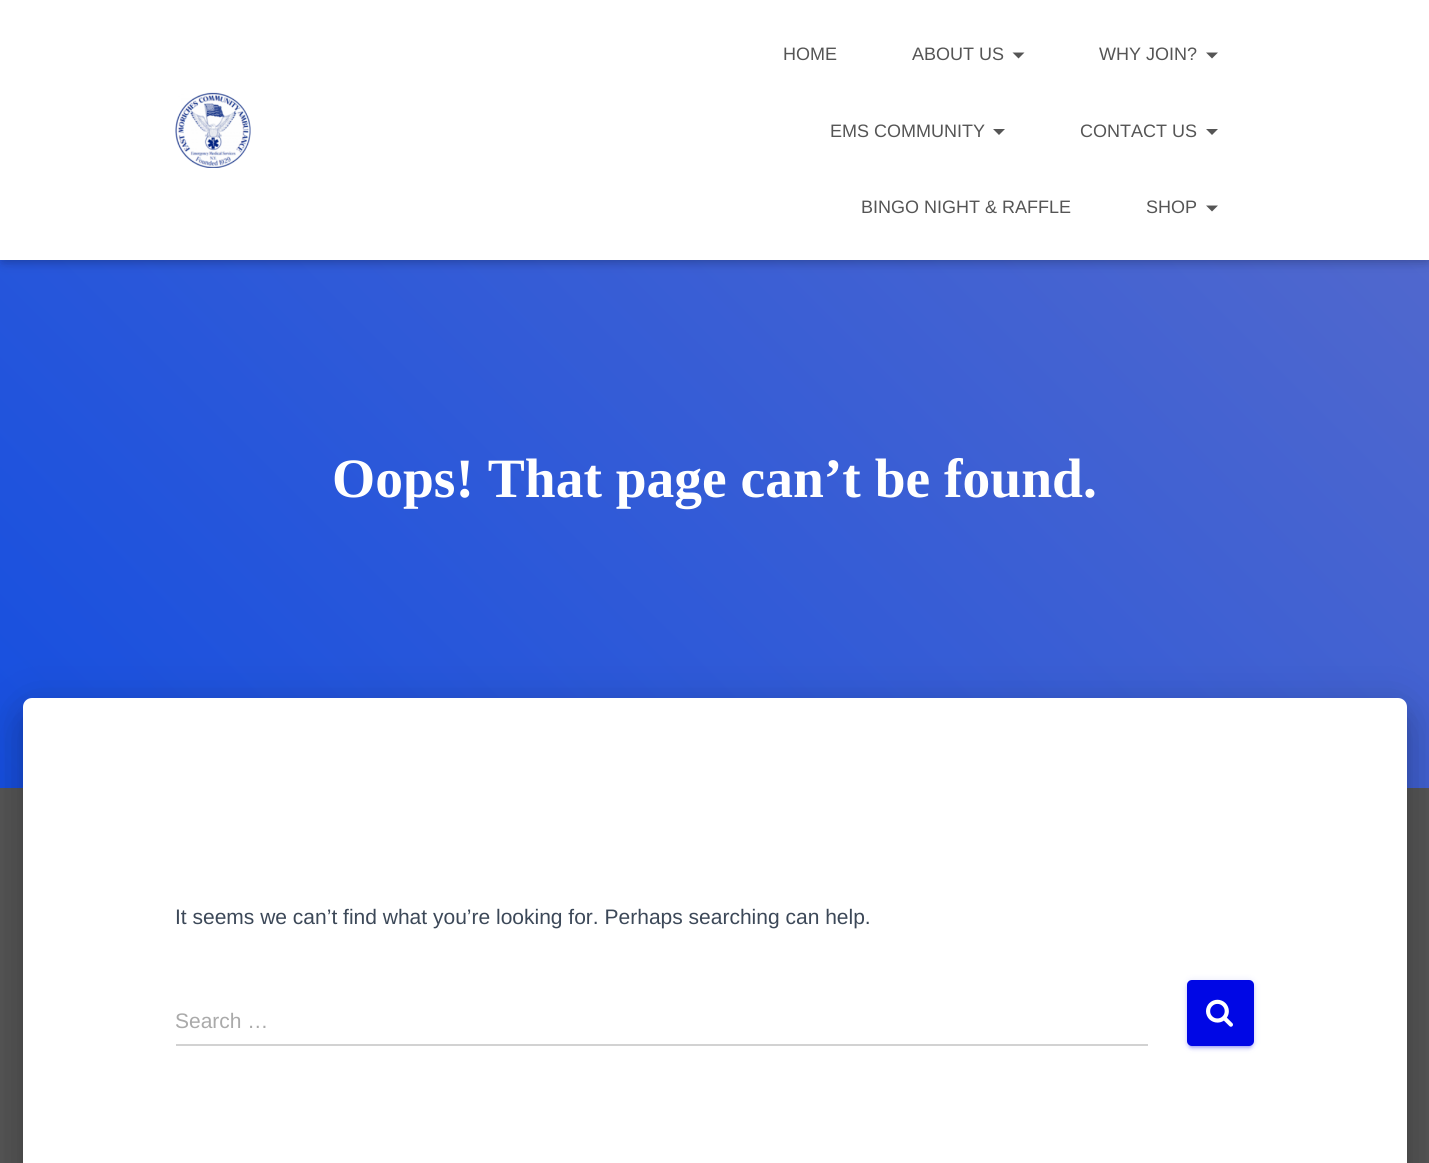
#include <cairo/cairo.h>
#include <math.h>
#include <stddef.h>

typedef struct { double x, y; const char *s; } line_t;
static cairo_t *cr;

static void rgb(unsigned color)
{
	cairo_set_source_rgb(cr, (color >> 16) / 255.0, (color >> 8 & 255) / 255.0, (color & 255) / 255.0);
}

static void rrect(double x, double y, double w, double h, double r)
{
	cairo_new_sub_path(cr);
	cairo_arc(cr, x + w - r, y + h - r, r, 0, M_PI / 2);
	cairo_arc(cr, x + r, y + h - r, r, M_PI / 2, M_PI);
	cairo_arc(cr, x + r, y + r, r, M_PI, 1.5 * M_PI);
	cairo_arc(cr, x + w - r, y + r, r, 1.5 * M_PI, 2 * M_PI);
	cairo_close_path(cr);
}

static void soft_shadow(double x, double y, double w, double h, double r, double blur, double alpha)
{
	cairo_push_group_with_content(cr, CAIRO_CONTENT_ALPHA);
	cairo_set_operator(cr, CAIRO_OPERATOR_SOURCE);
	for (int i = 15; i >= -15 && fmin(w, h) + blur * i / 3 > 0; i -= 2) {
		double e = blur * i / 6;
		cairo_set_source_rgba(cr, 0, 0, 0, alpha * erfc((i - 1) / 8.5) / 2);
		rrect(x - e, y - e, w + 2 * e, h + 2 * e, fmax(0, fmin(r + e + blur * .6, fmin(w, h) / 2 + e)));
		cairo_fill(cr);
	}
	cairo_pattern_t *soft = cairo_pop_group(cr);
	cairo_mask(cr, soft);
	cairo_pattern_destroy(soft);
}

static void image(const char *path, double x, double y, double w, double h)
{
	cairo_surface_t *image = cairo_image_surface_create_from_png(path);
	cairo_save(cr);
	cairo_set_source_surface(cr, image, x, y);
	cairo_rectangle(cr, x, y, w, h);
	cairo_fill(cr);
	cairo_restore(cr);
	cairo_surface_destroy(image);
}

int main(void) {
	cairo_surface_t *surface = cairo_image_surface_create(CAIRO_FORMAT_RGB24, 1429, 1163);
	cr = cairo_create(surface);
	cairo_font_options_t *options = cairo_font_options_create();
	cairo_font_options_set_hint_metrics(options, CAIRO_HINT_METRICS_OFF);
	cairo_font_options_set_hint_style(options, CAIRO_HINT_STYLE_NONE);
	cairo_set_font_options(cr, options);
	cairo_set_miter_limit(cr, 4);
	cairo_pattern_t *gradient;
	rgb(0x565656);
	cairo_paint(cr);
	gradient = cairo_pattern_create_linear(161, 948, 1269, -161);
	cairo_pattern_add_color_stop_rgba(gradient, 0, 0.086, 0.31, 0.878, 1);
	cairo_pattern_add_color_stop_rgba(gradient, 1, 0.345, 0.42, 0.796, 1);
	cairo_set_source(cr, gradient);
	cairo_pattern_destroy(gradient);
	cairo_rectangle(cr, 0, 260, 1429, 528);
	cairo_fill(cr);
	rgb(0x000000);
	soft_shadow(3, 9, 1424, 254, 0, 4, 0.1);
	soft_shadow(0, 2, 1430, 259, 0, 7.5, 0.12);
	soft_shadow(9, 11, 1412, 241, 0, 7.5, 0.42);
	rgb(0xffffff);
	cairo_rectangle(cr, 0, 0, 1429, 260);
	cairo_fill(cr);
	image("img/1.png", 175, 92, 76, 76);
	rgb(0x555555);
	cairo_new_path(cr);
	cairo_move_to(cr, 1012.5, 52.5);
	cairo_line_to(cr, 1024.5, 52.5);
	cairo_line_to(cr, 1018.5, 58.5);
	cairo_close_path(cr);
	cairo_fill(cr);
	cairo_new_path(cr);
	cairo_move_to(cr, 1206, 52.5);
	cairo_line_to(cr, 1218, 52.5);
	cairo_line_to(cr, 1212, 58.5);
	cairo_close_path(cr);
	cairo_fill(cr);
	cairo_new_path(cr);
	cairo_move_to(cr, 993, 129);
	cairo_line_to(cr, 1005, 129);
	cairo_line_to(cr, 999, 135);
	cairo_close_path(cr);
	cairo_fill(cr);
	cairo_new_path(cr);
	cairo_move_to(cr, 1206, 129);
	cairo_line_to(cr, 1218, 129);
	cairo_line_to(cr, 1212, 135);
	cairo_close_path(cr);
	cairo_fill(cr);
	cairo_new_path(cr);
	cairo_move_to(cr, 1206, 205.5);
	cairo_line_to(cr, 1218, 205.5);
	cairo_line_to(cr, 1212, 211.5);
	cairo_close_path(cr);
	cairo_fill(cr);
	rgb(0x000000);
	soft_shadow(30, 717, 1370, 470, 1.5, 7.5, 0.2);
	soft_shadow(15, 699, 1400, 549, 17, 22.5, 0.12);
	soft_shadow(20, 719, 1390, 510, 12, 18, 0.14);
	rgb(0xffffff);
	cairo_new_path(cr);
	cairo_move_to(cr, 32, 698);
	cairo_line_to(cr, 1398, 698);
	cairo_curve_to(cr, 1403, 698, 1407, 702, 1407, 707);
	cairo_line_to(cr, 1407, 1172);
	cairo_line_to(cr, 23, 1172);
	cairo_line_to(cr, 23, 707);
	cairo_curve_to(cr, 23, 702, 27, 698, 32, 698);
	cairo_close_path(cr);
	cairo_fill(cr);
	rgb(0xd2d2d2);
	cairo_rectangle(cr, 176, 1044, 972, 2);
	cairo_fill(cr);
	rgb(0x0007e5);
	soft_shadow(1187, 981, 67, 66, 5, 4, 0.12);
	soft_shadow(1190, 987, 61, 60, 1.5, 1, 0.2);
	soft_shadow(1187, 983, 67, 66, 5, 1.5, 0.14);
	rgb(0x0007e5);
	rrect(1187, 980, 67, 66, 5);
	cairo_fill(cr);
	image("img/2.png", 1206, 999, 27, 28);
	cairo_select_font_face(cr, "Liberation Sans", CAIRO_FONT_SLANT_NORMAL, CAIRO_FONT_WEIGHT_NORMAL);
	cairo_set_font_size(cr, 18);
	rgb(0x555555);
	{
		static const line_t items[] = {
			{783, 60, "HOME"},
			{912, 60, "ABOUT US"},
			{1099, 60, "WHY JOIN?"},
			{830, 137, "EMS COMMUNITY"},
			{1080, 137, "CONTACT US"},
			{861, 213, "BINGO NIGHT & RAFFLE"},
			{1146, 213, "SHOP"},
		};
		for (size_t i = 0; i < sizeof items / sizeof *items; i++) {
			cairo_move_to(cr, items[i].x, items[i].y);
			cairo_show_text(cr, items[i].s);
		}
	}
	cairo_select_font_face(cr, "Liberation Serif", CAIRO_FONT_SLANT_NORMAL, CAIRO_FONT_WEIGHT_BOLD);
	cairo_set_font_size(cr, 55.5);
	rgb(0xffffff);
	cairo_move_to(cr, 332, 497);
	cairo_show_text(cr, "Oops! That page can’t be found.");
	cairo_select_font_face(cr, "Liberation Sans", CAIRO_FONT_SLANT_NORMAL, CAIRO_FONT_WEIGHT_NORMAL);
	cairo_set_font_size(cr, 21);
	rgb(0x3c4858);
	cairo_move_to(cr, 175, 924);
	cairo_show_text(cr, "It seems we can’t find what you’re looking for. Perhaps searching can help.");
	rgb(0xaaaaaa);
	cairo_move_to(cr, 175, 1028);
	cairo_show_text(cr, "Search …");
	cairo_surface_write_to_png(surface, "page.png");
	cairo_font_options_destroy(options);
	cairo_destroy(cr);
	cairo_surface_destroy(surface);
	return 0;
}
